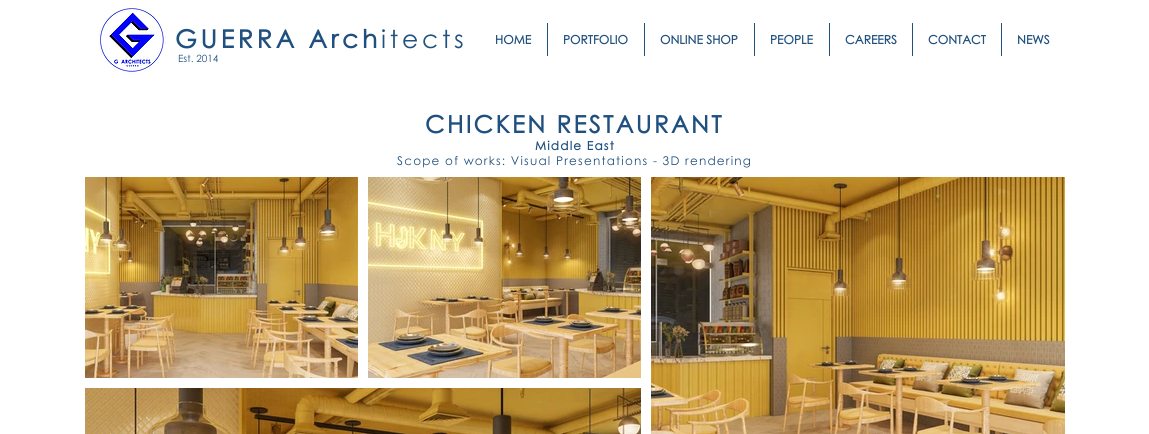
#include <cairo/cairo.h>
#include <math.h>
#include <stddef.h>

typedef struct { double x, y; const char *s; } line_t;
typedef struct { double x, y, w, h; unsigned color; } box_t;
static cairo_t *cr;

static void rgb(unsigned color)
{
	cairo_set_source_rgb(cr, (color >> 16) / 255.0, (color >> 8 & 255) / 255.0, (color & 255) / 255.0);
}

static void tracked(double x, double y, const char *s, double letter, double word)
{
	cairo_move_to(cr, x, y);
	while (*s) {
		char ch[5] = {0};
		int n = 0;
		do ch[n++] = *s++; while ((*s & 0xC0) == 0x80);
		cairo_show_text(cr, ch);
		cairo_rel_move_to(cr, letter + word * (*ch == ' '), 0);
	}
}

static void image(const char *path, double x, double y, double w, double h)
{
	cairo_surface_t *image = cairo_image_surface_create_from_png(path);
	cairo_save(cr);
	cairo_set_source_surface(cr, image, x, y);
	cairo_rectangle(cr, x, y, w, h);
	cairo_fill(cr);
	cairo_restore(cr);
	cairo_surface_destroy(image);
}

int main(void) {
	cairo_surface_t *surface = cairo_image_surface_create(CAIRO_FORMAT_RGB24, 1149, 434);
	cr = cairo_create(surface);
	cairo_font_options_t *options = cairo_font_options_create();
	cairo_font_options_set_hint_metrics(options, CAIRO_HINT_METRICS_OFF);
	cairo_font_options_set_hint_style(options, CAIRO_HINT_STYLE_NONE);
	cairo_set_font_options(cr, options);
	cairo_set_miter_limit(cr, 4);
	rgb(0xffffff);
	cairo_paint(cr);
	image("img/1.png", 98, 7, 68, 67);
	{
		static const box_t items[] = {
			{547, 23, 1, 33, 0x20507f},
			{644, 23, 1, 33, 0x20507f},
			{754, 23, 1, 33, 0x20507f},
			{829, 23, 1, 33, 0x20507f},
			{912, 23, 1, 33, 0x20507f},
			{1001, 23, 1, 33, 0x20507f},
		};
		for (size_t i = 0; i < sizeof items / sizeof *items; i++) {
			rgb(items[i].color);
			cairo_rectangle(cr, items[i].x, items[i].y, items[i].w, items[i].h);
			cairo_fill(cr);
		}
	}
	image("img/2.png", 85, 177, 273, 201);
	image("img/3.png", 368, 177, 273, 201);
	image("img/4.png", 651, 177, 414, 257);
	image("img/5.png", 85, 388, 556, 46);
	cairo_select_font_face(cr, "Century Gothic", CAIRO_FONT_SLANT_NORMAL, CAIRO_FONT_WEIGHT_BOLD);
	cairo_set_font_size(cr, 25);
	tracked(175, 48, "GUERRA Arch", 3.75, 0);
	cairo_select_font_face(cr, "Century Gothic", CAIRO_FONT_SLANT_NORMAL, CAIRO_FONT_WEIGHT_NORMAL);
	tracked(381, 48, "itects", 3.75, 0);
	cairo_select_font_face(cr, "Century Gothic", CAIRO_FONT_SLANT_NORMAL, CAIRO_FONT_WEIGHT_BOLD);
	cairo_set_font_size(cr, 12);
	{
		static const line_t items[] = {
			{495, 44, "HOME"},
			{563, 44, "PORTFOLIO"},
			{660, 44, "ONLINE SHOP"},
			{770, 44, "PEOPLE"},
			{845, 44, "CAREERS"},
			{928, 44, "CONTACT"},
			{1017, 44, "NEWS"},
		};
		for (size_t i = 0; i < sizeof items / sizeof *items; i++) {
			cairo_move_to(cr, items[i].x, items[i].y);
			cairo_show_text(cr, items[i].s);
		}
	}
	cairo_select_font_face(cr, "Century Gothic", CAIRO_FONT_SLANT_NORMAL, CAIRO_FONT_WEIGHT_NORMAL);
	cairo_set_font_size(cr, 10);
	cairo_move_to(cr, 178, 62);
	cairo_show_text(cr, "Est. 2014");
	cairo_select_font_face(cr, "Century Gothic", CAIRO_FONT_SLANT_NORMAL, CAIRO_FONT_WEIGHT_BOLD);
	cairo_set_font_size(cr, 24);
	tracked(425, 133, "CHICKEN RESTAURANT", 2.4, 0);
	cairo_set_font_size(cr, 12);
	tracked(535, 150, "Middle East", 1.2, 0);
	cairo_select_font_face(cr, "Century Gothic", CAIRO_FONT_SLANT_NORMAL, CAIRO_FONT_WEIGHT_NORMAL);
	tracked(397, 165, "Scope of works: Visual Presentations - 3D rendering", 1.2, 0);
	cairo_surface_write_to_png(surface, "page.png");
	cairo_font_options_destroy(options);
	cairo_destroy(cr);
	cairo_surface_destroy(surface);
	return 0;
}
